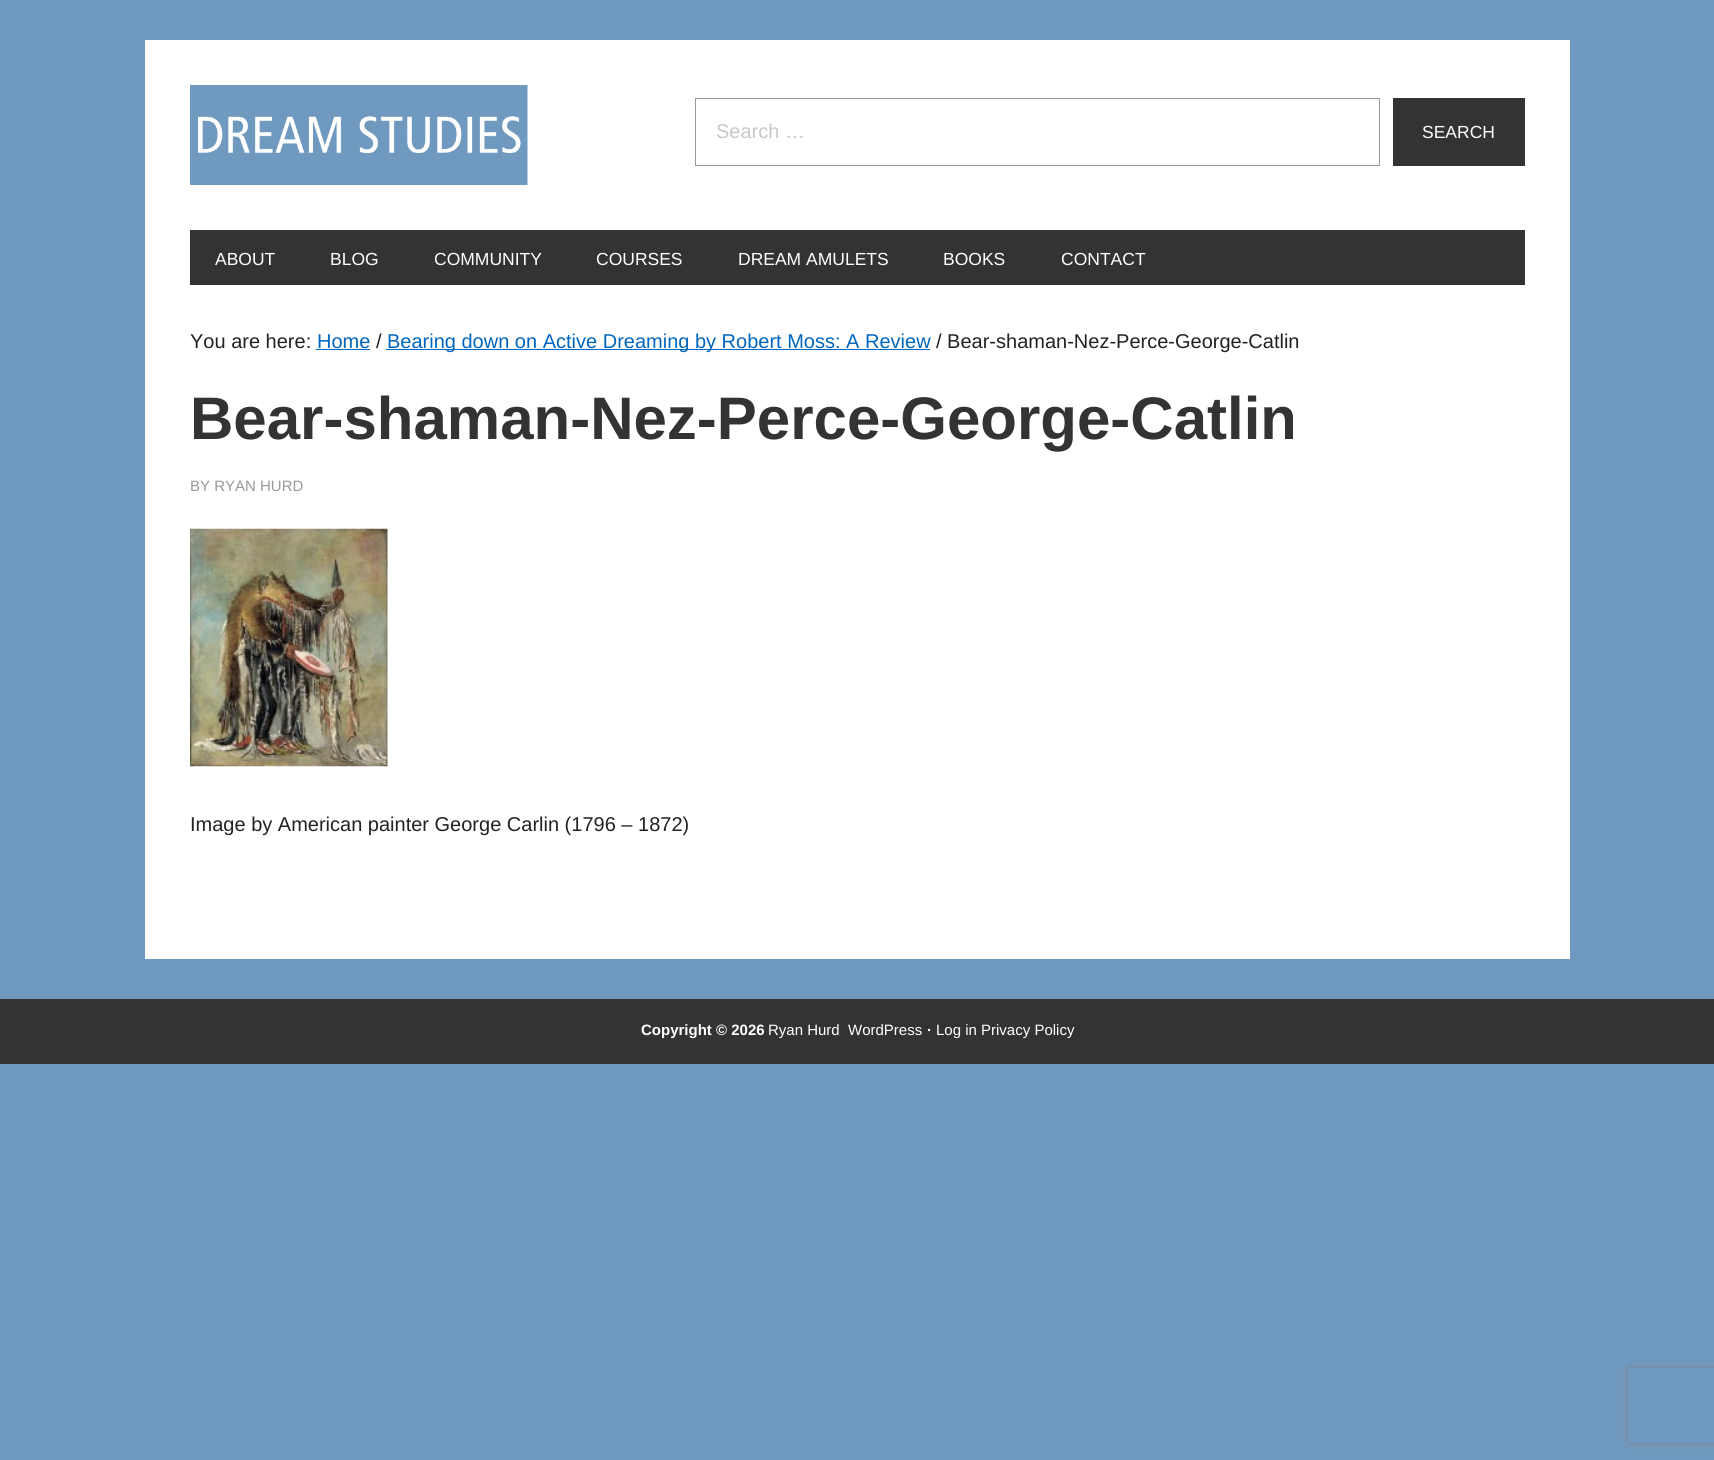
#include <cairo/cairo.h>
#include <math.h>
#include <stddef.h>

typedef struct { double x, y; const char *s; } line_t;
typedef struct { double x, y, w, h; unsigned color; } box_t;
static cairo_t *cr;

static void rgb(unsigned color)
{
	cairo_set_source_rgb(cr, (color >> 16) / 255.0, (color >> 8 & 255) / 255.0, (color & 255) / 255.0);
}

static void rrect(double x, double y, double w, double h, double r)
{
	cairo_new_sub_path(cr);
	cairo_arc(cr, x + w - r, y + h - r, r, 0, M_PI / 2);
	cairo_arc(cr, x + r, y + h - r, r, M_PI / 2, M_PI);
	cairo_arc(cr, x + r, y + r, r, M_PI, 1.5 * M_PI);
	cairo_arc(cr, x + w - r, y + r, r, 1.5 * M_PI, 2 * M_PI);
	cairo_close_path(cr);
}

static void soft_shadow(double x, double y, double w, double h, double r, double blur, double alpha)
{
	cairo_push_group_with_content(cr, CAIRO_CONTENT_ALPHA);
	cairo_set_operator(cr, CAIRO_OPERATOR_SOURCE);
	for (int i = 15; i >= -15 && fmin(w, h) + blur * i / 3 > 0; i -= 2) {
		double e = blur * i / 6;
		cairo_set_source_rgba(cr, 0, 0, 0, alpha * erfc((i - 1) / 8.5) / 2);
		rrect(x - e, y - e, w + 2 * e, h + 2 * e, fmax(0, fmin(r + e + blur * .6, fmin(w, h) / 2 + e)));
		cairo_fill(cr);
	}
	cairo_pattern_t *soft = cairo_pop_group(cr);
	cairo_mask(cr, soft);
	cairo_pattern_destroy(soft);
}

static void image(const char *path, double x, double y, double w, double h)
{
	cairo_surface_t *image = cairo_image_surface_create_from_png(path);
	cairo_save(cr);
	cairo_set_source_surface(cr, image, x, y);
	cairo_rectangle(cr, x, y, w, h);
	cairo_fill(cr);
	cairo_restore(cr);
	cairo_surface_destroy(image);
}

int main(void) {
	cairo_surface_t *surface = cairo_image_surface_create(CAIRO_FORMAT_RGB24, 1714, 1460);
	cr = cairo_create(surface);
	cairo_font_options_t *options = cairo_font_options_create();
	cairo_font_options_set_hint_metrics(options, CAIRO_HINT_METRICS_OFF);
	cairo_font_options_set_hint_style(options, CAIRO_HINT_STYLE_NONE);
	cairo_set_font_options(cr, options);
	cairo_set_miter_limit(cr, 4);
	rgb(0x7099bf);
	cairo_paint(cr);
	rgb(0xffffff);
	cairo_rectangle(cr, 145, 40, 1425, 919);
	cairo_fill(cr);
	image("img/1.png", 190, 85, 338, 100);
	cairo_rectangle(cr, 695.5, 98.5, 684, 67);
	rgb(0x999999);
	cairo_set_line_width(cr, 1);
	cairo_stroke(cr);
	{
		static const box_t items[] = {
			{1393, 98, 132, 68, 0x333333},
			{190, 230, 1335, 55, 0x333333},
			{316, 349, 54, 1, 0x0066bf},
			{386, 349, 544, 1, 0x0066bf},
		};
		for (size_t i = 0; i < sizeof items / sizeof *items; i++) {
			rgb(items[i].color);
			cairo_rectangle(cr, items[i].x, items[i].y, items[i].w, items[i].h);
			cairo_fill(cr);
		}
	}
	image("img/2.png", 190, 528, 198, 239);
	rgb(0x333333);
	cairo_rectangle(cr, 0, 999, 1714, 65);
	cairo_fill(cr);
	cairo_save(cr);
	cairo_set_fill_rule(cr, CAIRO_FILL_RULE_EVEN_ODD);
	cairo_new_path(cr);
	cairo_move_to(cr, 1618, 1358);
	cairo_line_to(cr, 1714, 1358);
	cairo_line_to(cr, 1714, 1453);
	cairo_line_to(cr, 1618, 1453);
	cairo_close_path(cr);
	cairo_move_to(cr, 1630.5, 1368);
	cairo_line_to(cr, 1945.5, 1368);
	cairo_curve_to(cr, 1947, 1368, 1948, 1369, 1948, 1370.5);
	cairo_line_to(cr, 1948, 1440.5);
	cairo_curve_to(cr, 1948, 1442, 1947, 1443, 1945.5, 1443);
	cairo_line_to(cr, 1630.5, 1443);
	cairo_curve_to(cr, 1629, 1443, 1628, 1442, 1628, 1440.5);
	cairo_line_to(cr, 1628, 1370.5);
	cairo_curve_to(cr, 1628, 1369, 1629, 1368, 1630.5, 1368);
	cairo_close_path(cr);
	cairo_clip(cr);
	rgb(0x808080);
	soft_shadow(1628, 1368, 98, 75, 2.5, 3, 1);
	cairo_restore(cr);
	cairo_select_font_face(cr, "Liberation Sans", CAIRO_FONT_SLANT_NORMAL, CAIRO_FONT_WEIGHT_NORMAL);
	cairo_set_font_size(cr, 20);
	rgb(0xc8c8c8);
	cairo_move_to(cr, 716, 138);
	cairo_show_text(cr, "Search …");
	cairo_set_font_size(cr, 17.5);
	rgb(0xffffff);
	{
		static const line_t items[] = {
			{1422, 138, "SEARCH"},
			{215, 265, "ABOUT"},
			{330, 265, "BLOG"},
			{434, 265, "COMMUNITY"},
			{596, 265, "COURSES"},
			{738, 265, "DREAM AMULETS"},
			{943, 265, "BOOKS"},
			{1061, 265, "CONTACT"},
		};
		for (size_t i = 0; i < sizeof items / sizeof *items; i++) {
			cairo_move_to(cr, items[i].x, items[i].y);
			cairo_show_text(cr, items[i].s);
		}
	}
	cairo_set_font_size(cr, 20);
	rgb(0x222222);
	cairo_move_to(cr, 190, 348);
	cairo_show_text(cr, "You are here:");
	rgb(0x0066bf);
	cairo_move_to(cr, 317, 348);
	cairo_show_text(cr, "Home");
	rgb(0x222222);
	cairo_move_to(cr, 376, 348);
	cairo_show_text(cr, "/");
	rgb(0x0066bf);
	cairo_move_to(cr, 387, 348);
	cairo_show_text(cr, "Bearing down on Active Dreaming by Robert Moss: A Review");
	rgb(0x222222);
	cairo_move_to(cr, 936, 348);
	cairo_show_text(cr, "/ Bear-shaman-Nez-Perce-George-Catlin");
	cairo_select_font_face(cr, "Liberation Sans", CAIRO_FONT_SLANT_NORMAL, CAIRO_FONT_WEIGHT_BOLD);
	cairo_set_font_size(cr, 60);
	rgb(0x333333);
	cairo_move_to(cr, 190, 439);
	cairo_show_text(cr, "Bear-shaman-Nez-Perce-George-Catlin");
	cairo_select_font_face(cr, "Liberation Sans", CAIRO_FONT_SLANT_NORMAL, CAIRO_FONT_WEIGHT_NORMAL);
	cairo_set_font_size(cr, 15);
	rgb(0x999999);
	cairo_move_to(cr, 190, 491);
	cairo_show_text(cr, "BY RYAN HURD");
	cairo_set_font_size(cr, 20);
	rgb(0x222222);
	cairo_move_to(cr, 190, 831);
	cairo_show_text(cr, "Image by American painter George Carlin (1796 – 1872)");
	cairo_select_font_face(cr, "Liberation Sans", CAIRO_FONT_SLANT_NORMAL, CAIRO_FONT_WEIGHT_BOLD);
	cairo_set_font_size(cr, 15);
	rgb(0xffffff);
	cairo_move_to(cr, 641, 1035);
	cairo_show_text(cr, "Copyright © 2026");
	cairo_select_font_face(cr, "Liberation Sans", CAIRO_FONT_SLANT_NORMAL, CAIRO_FONT_WEIGHT_NORMAL);
	cairo_move_to(cr, 768, 1035);
	cairo_show_text(cr, "Ryan Hurd");
	cairo_move_to(cr, 848, 1035);
	cairo_show_text(cr, "WordPress");
	cairo_select_font_face(cr, "Liberation Sans", CAIRO_FONT_SLANT_NORMAL, CAIRO_FONT_WEIGHT_BOLD);
	cairo_move_to(cr, 927, 1035);
	cairo_show_text(cr, "·");
	cairo_select_font_face(cr, "Liberation Sans", CAIRO_FONT_SLANT_NORMAL, CAIRO_FONT_WEIGHT_NORMAL);
	cairo_move_to(cr, 936, 1035);
	cairo_show_text(cr, "Log in Privacy Policy");
	cairo_surface_write_to_png(surface, "page.png");
	cairo_font_options_destroy(options);
	cairo_destroy(cr);
	cairo_surface_destroy(surface);
	return 0;
}
